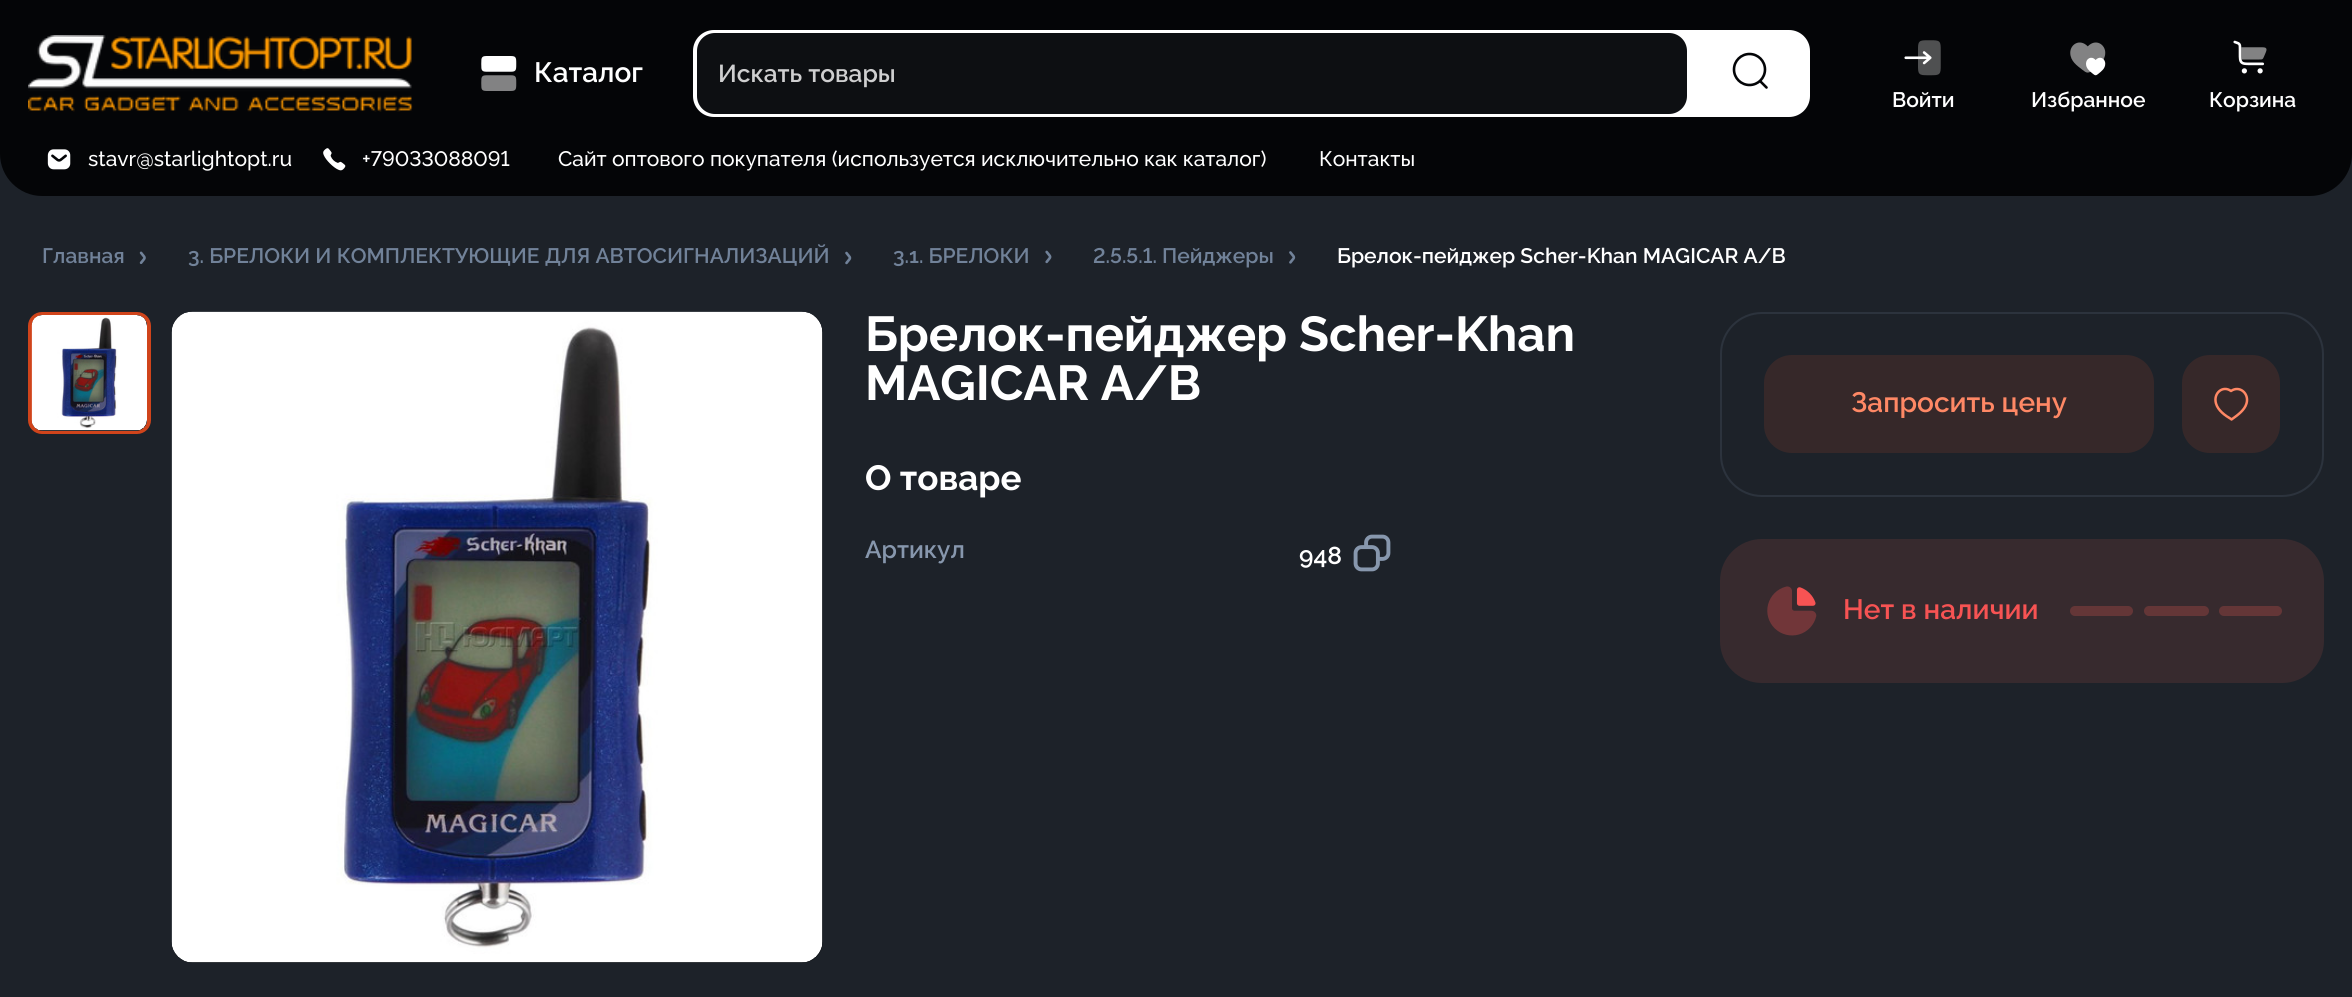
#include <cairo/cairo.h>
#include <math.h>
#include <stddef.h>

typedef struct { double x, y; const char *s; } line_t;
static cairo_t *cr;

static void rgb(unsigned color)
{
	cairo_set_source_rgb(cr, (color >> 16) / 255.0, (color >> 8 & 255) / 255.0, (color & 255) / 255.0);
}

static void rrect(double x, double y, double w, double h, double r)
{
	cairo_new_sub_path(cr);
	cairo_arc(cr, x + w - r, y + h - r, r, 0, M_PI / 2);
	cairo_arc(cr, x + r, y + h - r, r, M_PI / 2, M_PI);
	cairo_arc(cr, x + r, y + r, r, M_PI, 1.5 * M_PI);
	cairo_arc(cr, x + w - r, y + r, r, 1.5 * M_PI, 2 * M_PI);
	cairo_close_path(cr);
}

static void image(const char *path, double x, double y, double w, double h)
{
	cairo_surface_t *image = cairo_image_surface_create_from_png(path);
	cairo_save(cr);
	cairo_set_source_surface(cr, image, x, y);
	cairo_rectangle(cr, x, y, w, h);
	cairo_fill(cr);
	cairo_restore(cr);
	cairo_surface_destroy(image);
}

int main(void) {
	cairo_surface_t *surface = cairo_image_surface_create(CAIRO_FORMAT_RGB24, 2352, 997);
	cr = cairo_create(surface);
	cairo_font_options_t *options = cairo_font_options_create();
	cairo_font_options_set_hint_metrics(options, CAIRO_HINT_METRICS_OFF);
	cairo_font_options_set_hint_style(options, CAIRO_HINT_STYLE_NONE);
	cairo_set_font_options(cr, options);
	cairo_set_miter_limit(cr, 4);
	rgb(0x1d2229);
	cairo_paint(cr);
	rgb(0x040507);
	cairo_new_path(cr);
	cairo_move_to(cr, 0, 0);
	cairo_line_to(cr, 2352, 0);
	cairo_line_to(cr, 2352, 154);
	cairo_curve_to(cr, 2352, 177, 2333, 196, 2310, 196);
	cairo_line_to(cr, 42, 196);
	cairo_curve_to(cr, 19, 196, 0, 177, 0, 154);
	cairo_close_path(cr);
	cairo_fill(cr);
	image("img/1.png", 28, 35, 385, 77);
	image("img/2.png", 481, 56, 36, 35);
	rgb(0xffffff);
	rrect(693, 30, 1117, 87, 21);
	cairo_fill(cr);
	rgb(0x0d0f12);
	rrect(697, 33, 990, 81, 18);
	cairo_fill(cr);
	cairo_arc(cr, 1749.5, 69.5, 15.5, 0, 2 * M_PI);
	rgb(0x040507);
	cairo_set_line_width(cr, 2.6);
	cairo_stroke(cr);
	cairo_new_path(cr);
	cairo_move_to(cr, 1760.5, 81.5);
	cairo_line_to(cr, 1766.5, 87.5);
	cairo_set_line_cap(cr, CAIRO_LINE_CAP_ROUND);
	cairo_set_line_join(cr, CAIRO_LINE_JOIN_ROUND);
	cairo_stroke(cr);
	image("img/3.png", 1904, 40, 37, 36);
	image("img/4.png", 2070, 42, 36, 34);
	image("img/5.png", 2233, 40, 34, 34);
	image("img/6.png", 47, 149, 24, 21);
	image("img/7.png", 323, 148, 23, 23);
	image("img/8.png", 139, 251, 7, 13);
	image("img/9.png", 845, 251, 7, 14);
	image("img/10.png", 1045, 250, 7, 14);
	image("img/11.png", 1289, 251, 7, 13);
	rrect(30, 314, 119, 118, 12);
	rgb(0xd0441b);
	cairo_set_line_width(cr, 4);
	cairo_set_line_cap(cr, CAIRO_LINE_CAP_BUTT);
	cairo_set_line_join(cr, CAIRO_LINE_JOIN_MITER);
	cairo_stroke(cr);
	rgb(0x161a1f);
	rrect(32, 315, 115, 116, 11);
	cairo_fill(cr);
	image("img/12.png", 31, 315, 116, 116);
	rrect(172, 312, 651, 651, 21);
	cairo_fill(cr);
	image("img/13.png", 171, 311, 652, 652);
	image("img/14.png", 1353, 534, 38, 38);
	rrect(1721, 313, 602, 183, 41);
	rgb(0x2c333d);
	cairo_set_line_width(cr, 2);
	cairo_stroke(cr);
	rgb(0x362829);
	rrect(1764, 355, 390, 98, 28);
	cairo_fill(cr);
	rrect(2182, 355, 98, 98, 28);
	cairo_fill(cr);
	cairo_new_path(cr);
	cairo_move_to(cr, 2231, 419);
	cairo_curve_to(cr, 2225, 415.5, 2218, 410.5, 2216, 403.5);
	cairo_curve_to(cr, 2213, 393, 2223, 385, 2231, 391);
	cairo_curve_to(cr, 2239.5, 385, 2249.5, 393.5, 2246.5, 403.5);
	cairo_curve_to(cr, 2244.5, 410.5, 2237, 415.5, 2231.5, 419.5);
	cairo_close_path(cr);
	rgb(0xff8865);
	cairo_set_line_width(cr, 2.5);
	cairo_set_line_cap(cr, CAIRO_LINE_CAP_ROUND);
	cairo_set_line_join(cr, CAIRO_LINE_JOIN_ROUND);
	cairo_stroke(cr);
	rgb(0x372a2e);
	rrect(1720, 539, 604, 144, 42);
	cairo_fill(cr);
	image("img/15.png", 1767, 586, 50, 50);
	rgb(0x643637);
	rrect(2070, 606, 63, 10, 5);
	cairo_fill(cr);
	rrect(2144, 606, 65, 10, 5);
	cairo_fill(cr);
	rrect(2219, 606, 63, 10, 5);
	cairo_fill(cr);
	cairo_select_font_face(cr, "Raleway SemiBold", CAIRO_FONT_SLANT_NORMAL, CAIRO_FONT_WEIGHT_NORMAL);
	cairo_set_font_size(cr, 28);
	rgb(0xffffff);
	cairo_move_to(cr, 534, 82);
	cairo_show_text(cr, "Каталог");
	cairo_set_font_size(cr, 24.5);
	rgb(0xcfcfd0);
	cairo_move_to(cr, 718, 82);
	cairo_show_text(cr, "Искать товары");
	cairo_set_font_size(cr, 21);
	rgb(0xffffff);
	{
		static const line_t items[] = {
			{1892, 107, "Войти"},
			{2031, 107, "Избранное"},
			{2209, 107, "Корзина"},
		};
		for (size_t i = 0; i < sizeof items / sizeof *items; i++) {
			cairo_move_to(cr, items[i].x, items[i].y);
			cairo_show_text(cr, items[i].s);
		}
	}
	cairo_select_font_face(cr, "Raleway Medium", CAIRO_FONT_SLANT_NORMAL, CAIRO_FONT_WEIGHT_NORMAL);
	cairo_move_to(cr, 88, 166);
	cairo_show_text(cr, "stavr@starlightopt.ru");
	cairo_select_font_face(cr, "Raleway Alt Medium", CAIRO_FONT_SLANT_NORMAL, CAIRO_FONT_WEIGHT_NORMAL);
	cairo_move_to(cr, 362, 166);
	cairo_show_text(cr, "+79033088091");
	cairo_select_font_face(cr, "Raleway Medium", CAIRO_FONT_SLANT_NORMAL, CAIRO_FONT_WEIGHT_NORMAL);
	cairo_move_to(cr, 558, 166);
	cairo_show_text(cr, "Сайт оптового покупателя (используется исключительно как каталог)");
	cairo_move_to(cr, 1319, 166);
	cairo_show_text(cr, "Контакты");
	cairo_select_font_face(cr, "Raleway SemiBold", CAIRO_FONT_SLANT_NORMAL, CAIRO_FONT_WEIGHT_NORMAL);
	rgb(0x718299);
	{
		static const line_t items[] = {
			{42, 263, "Главная"},
			{188, 263, "3. БРЕЛОКИ И КОМПЛЕКТУЮЩИЕ ДЛЯ АВТОСИГНАЛИЗАЦИЙ"},
			{893, 263, "3.1. БРЕЛОКИ"},
		};
		for (size_t i = 0; i < sizeof items / sizeof *items; i++) {
			cairo_move_to(cr, items[i].x, items[i].y);
			cairo_show_text(cr, items[i].s);
		}
	}
	cairo_select_font_face(cr, "Raleway Alt SemiBold", CAIRO_FONT_SLANT_NORMAL, CAIRO_FONT_WEIGHT_NORMAL);
	cairo_move_to(cr, 1093, 263);
	cairo_show_text(cr, "2.5.5.1. Пейджеры");
	cairo_select_font_face(cr, "Raleway SemiBold", CAIRO_FONT_SLANT_NORMAL, CAIRO_FONT_WEIGHT_NORMAL);
	rgb(0xffffff);
	cairo_move_to(cr, 1337, 263);
	cairo_show_text(cr, "Брелок-пейджер Scher-Khan MAGICAR A/B");
	cairo_select_font_face(cr, "Raleway", CAIRO_FONT_SLANT_NORMAL, CAIRO_FONT_WEIGHT_BOLD);
	cairo_set_font_size(cr, 49);
	cairo_move_to(cr, 865, 351);
	cairo_show_text(cr, "Брелок-пейджер Scher-Khan");
	cairo_move_to(cr, 865, 400);
	cairo_show_text(cr, "MAGICAR A/B");
	cairo_set_font_size(cr, 35);
	cairo_move_to(cr, 865, 490);
	cairo_show_text(cr, "О товаре");
	cairo_select_font_face(cr, "Raleway SemiBold", CAIRO_FONT_SLANT_NORMAL, CAIRO_FONT_WEIGHT_NORMAL);
	cairo_set_font_size(cr, 24.5);
	rgb(0x8797ad);
	cairo_move_to(cr, 865, 558);
	cairo_show_text(cr, "Артикул");
	rgb(0xffffff);
	cairo_move_to(cr, 1299, 564);
	cairo_show_text(cr, "948");
	cairo_set_font_size(cr, 28);
	rgb(0xff8865);
	cairo_move_to(cr, 1851, 412);
	cairo_show_text(cr, "Запросить цену");
	rgb(0xf75353);
	cairo_move_to(cr, 1843, 619);
	cairo_show_text(cr, "Нет в наличии");
	cairo_surface_write_to_png(surface, "page.png");
	cairo_font_options_destroy(options);
	cairo_destroy(cr);
	cairo_surface_destroy(surface);
	return 0;
}
